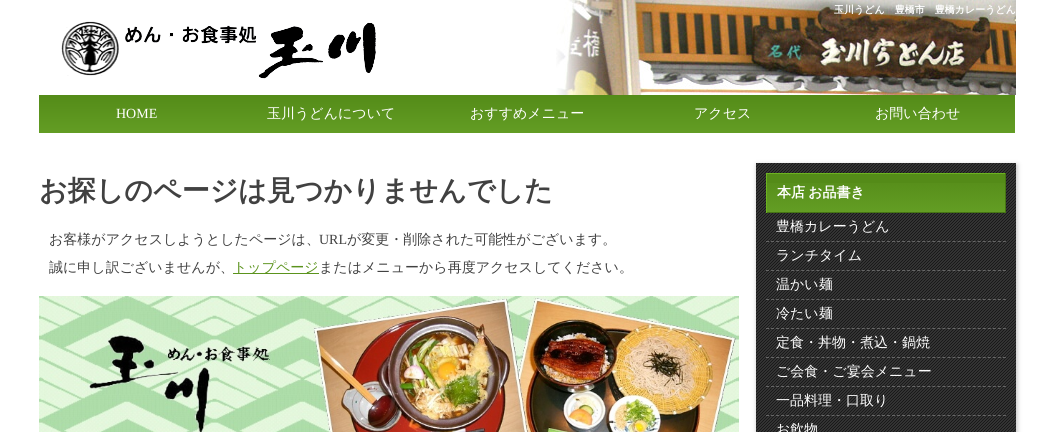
#include <cairo/cairo.h>
#include <math.h>
#include <stddef.h>

typedef struct { double x, y; const char *s; } line_t;
typedef struct { double x, y, w, h; unsigned color; } box_t;
static cairo_t *cr;

static void rgb(unsigned color)
{
	cairo_set_source_rgb(cr, (color >> 16) / 255.0, (color >> 8 & 255) / 255.0, (color & 255) / 255.0);
}

static void tracked(double x, double y, const char *s, double letter, double word)
{
	cairo_move_to(cr, x, y);
	while (*s) {
		char ch[5] = {0};
		int n = 0;
		do ch[n++] = *s++; while ((*s & 0xC0) == 0x80);
		cairo_show_text(cr, ch);
		cairo_rel_move_to(cr, letter + word * (*ch == ' '), 0);
	}
}

static void rrect(double x, double y, double w, double h, double r)
{
	cairo_new_sub_path(cr);
	cairo_arc(cr, x + w - r, y + h - r, r, 0, M_PI / 2);
	cairo_arc(cr, x + r, y + h - r, r, M_PI / 2, M_PI);
	cairo_arc(cr, x + r, y + r, r, M_PI, 1.5 * M_PI);
	cairo_arc(cr, x + w - r, y + r, r, 1.5 * M_PI, 2 * M_PI);
	cairo_close_path(cr);
}

static void soft_shadow(double x, double y, double w, double h, double r, double blur, double alpha)
{
	cairo_push_group_with_content(cr, CAIRO_CONTENT_ALPHA);
	cairo_set_operator(cr, CAIRO_OPERATOR_SOURCE);
	for (int i = 15; i >= -15 && fmin(w, h) + blur * i / 3 > 0; i -= 2) {
		double e = blur * i / 6;
		cairo_set_source_rgba(cr, 0, 0, 0, alpha * erfc((i - 1) / 8.5) / 2);
		rrect(x - e, y - e, w + 2 * e, h + 2 * e, fmax(0, fmin(r + e + blur * .6, fmin(w, h) / 2 + e)));
		cairo_fill(cr);
	}
	cairo_pattern_t *soft = cairo_pop_group(cr);
	cairo_mask(cr, soft);
	cairo_pattern_destroy(soft);
}

static void image(const char *path, double x, double y, double w, double h)
{
	cairo_surface_t *image = cairo_image_surface_create_from_png(path);
	cairo_save(cr);
	cairo_set_source_surface(cr, image, x, y);
	cairo_rectangle(cr, x, y, w, h);
	cairo_fill(cr);
	cairo_restore(cr);
	cairo_surface_destroy(image);
}

int main(void) {
	cairo_surface_t *surface = cairo_image_surface_create(CAIRO_FORMAT_RGB24, 1054, 432);
	cr = cairo_create(surface);
	cairo_font_options_t *options = cairo_font_options_create();
	cairo_font_options_set_hint_metrics(options, CAIRO_HINT_METRICS_OFF);
	cairo_font_options_set_hint_style(options, CAIRO_HINT_STYLE_NONE);
	cairo_set_font_options(cr, options);
	cairo_set_miter_limit(cr, 4);
	cairo_pattern_t *gradient;
	rgb(0xffffff);
	cairo_paint(cr);
	image("img/1.png", 556, 0, 460, 95);
	image("img/2.png", 61, 21, 315, 58);
	gradient = cairo_pattern_create_linear(137, 95, 137, 133);
	cairo_pattern_add_color_stop_rgba(gradient, 0, 0.329, 0.545, 0.094, 1);
	cairo_pattern_add_color_stop_rgba(gradient, 1, 0.388, 0.616, 0.141, 1);
	cairo_set_source(cr, gradient);
	cairo_pattern_destroy(gradient);
	cairo_rectangle(cr, 39, 95, 195, 38);
	cairo_fill(cr);
	gradient = cairo_pattern_create_linear(332, 95, 332, 133);
	cairo_pattern_add_color_stop_rgba(gradient, 0, 0.329, 0.545, 0.094, 1);
	cairo_pattern_add_color_stop_rgba(gradient, 1, 0.388, 0.616, 0.141, 1);
	cairo_set_source(cr, gradient);
	cairo_pattern_destroy(gradient);
	cairo_rectangle(cr, 234, 95, 195, 38);
	cairo_fill(cr);
	gradient = cairo_pattern_create_linear(527, 95, 527, 133);
	cairo_pattern_add_color_stop_rgba(gradient, 0, 0.329, 0.545, 0.094, 1);
	cairo_pattern_add_color_stop_rgba(gradient, 1, 0.388, 0.616, 0.141, 1);
	cairo_set_source(cr, gradient);
	cairo_pattern_destroy(gradient);
	cairo_rectangle(cr, 429, 95, 196, 38);
	cairo_fill(cr);
	gradient = cairo_pattern_create_linear(723, 95, 723, 133);
	cairo_pattern_add_color_stop_rgba(gradient, 0, 0.329, 0.545, 0.094, 1);
	cairo_pattern_add_color_stop_rgba(gradient, 1, 0.388, 0.616, 0.141, 1);
	cairo_set_source(cr, gradient);
	cairo_pattern_destroy(gradient);
	cairo_rectangle(cr, 625, 95, 195, 38);
	cairo_fill(cr);
	gradient = cairo_pattern_create_linear(918, 95, 918, 133);
	cairo_pattern_add_color_stop_rgba(gradient, 0, 0.329, 0.545, 0.094, 1);
	cairo_pattern_add_color_stop_rgba(gradient, 1, 0.388, 0.616, 0.141, 1);
	cairo_set_source(cr, gradient);
	cairo_pattern_destroy(gradient);
	cairo_rectangle(cr, 820, 95, 195, 38);
	cairo_fill(cr);
	rgb(0x5b931d);
	cairo_rectangle(cr, 233, 273, 86, 1);
	cairo_fill(cr);
	image("img/3.png", 39, 296, 700, 136);
	rgb(0xbcbcbc);
	soft_shadow(757, 165, 260, 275, 0, 2.5, 1);
	rgb(0x333333);
	cairo_rectangle(cr, 756, 163, 260, 269);
	cairo_fill(cr);
	image("img/4.png", 756, 163, 260, 269);
	rgb(0x548b18);
	cairo_rectangle(cr, 767, 174, 238, 9);
	cairo_fill(cr);
	image("img/5.png", 767, 183, 238, 29);
	{
		static const box_t items[] = {
			{766, 173, 240, 1, 0x6cb31f},
			{1005, 173, 1, 40, 0x457414},
			{766, 212, 240, 1, 0x457414},
			{766, 173, 1, 40, 0x6cb31f},
		};
		for (size_t i = 0; i < sizeof items / sizeof *items; i++) {
			rgb(items[i].color);
			cairo_rectangle(cr, items[i].x, items[i].y, items[i].w, items[i].h);
			cairo_fill(cr);
		}
	}
	cairo_new_path(cr);
	cairo_move_to(cr, 766, 241.5);
	cairo_line_to(cr, 1006, 241.5);
	rgb(0x666666);
	cairo_set_line_width(cr, 1);
	cairo_set_dash(cr, (double[]){3, 2.04}, 2, 0);
	cairo_stroke(cr);
	cairo_new_path(cr);
	cairo_move_to(cr, 766, 270.5);
	cairo_line_to(cr, 1006, 270.5);
	cairo_stroke(cr);
	cairo_new_path(cr);
	cairo_move_to(cr, 766, 299.5);
	cairo_line_to(cr, 1006, 299.5);
	cairo_stroke(cr);
	cairo_new_path(cr);
	cairo_move_to(cr, 766, 328.5);
	cairo_line_to(cr, 1006, 328.5);
	cairo_stroke(cr);
	cairo_new_path(cr);
	cairo_move_to(cr, 766, 357.5);
	cairo_line_to(cr, 1006, 357.5);
	cairo_stroke(cr);
	cairo_new_path(cr);
	cairo_move_to(cr, 766, 386.5);
	cairo_line_to(cr, 1006, 386.5);
	cairo_stroke(cr);
	cairo_new_path(cr);
	cairo_move_to(cr, 766, 415.5);
	cairo_line_to(cr, 1006, 415.5);
	cairo_stroke(cr);
	cairo_select_font_face(cr, "WenQuanYi Zen Hei", CAIRO_FONT_SLANT_NORMAL, CAIRO_FONT_WEIGHT_BOLD);
	cairo_set_font_size(cr, 10);
	rgb(0xffffff);
	cairo_move_to(cr, 834, 13);
	cairo_show_text(cr, "玉川うどん　豊橋市　豊橋カレーうどん");
	cairo_select_font_face(cr, "Liberation Serif", CAIRO_FONT_SLANT_NORMAL, CAIRO_FONT_WEIGHT_NORMAL);
	cairo_set_font_size(cr, 14);
	cairo_move_to(cr, 116, 118);
	cairo_show_text(cr, "HOME");
	cairo_select_font_face(cr, "WenQuanYi Zen Hei Medium", CAIRO_FONT_SLANT_NORMAL, CAIRO_FONT_WEIGHT_NORMAL);
	{
		static const line_t items[] = {
			{267, 118, "玉川うどんについて"},
			{470, 118, "おすすめメニュー"},
			{694, 118, "アクセス"},
			{875, 118, "お問い合わせ"},
		};
		for (size_t i = 0; i < sizeof items / sizeof *items; i++) {
			cairo_move_to(cr, items[i].x, items[i].y);
			cairo_show_text(cr, items[i].s);
		}
	}
	cairo_select_font_face(cr, "WenQuanYi Zen Hei", CAIRO_FONT_SLANT_NORMAL, CAIRO_FONT_WEIGHT_BOLD);
	cairo_set_font_size(cr, 28);
	rgb(0x414141);
	cairo_move_to(cr, 39, 200);
	cairo_show_text(cr, "お探しのページは見つかりませんでした");
	cairo_select_font_face(cr, "WenQuanYi Zen Hei Medium", CAIRO_FONT_SLANT_NORMAL, CAIRO_FONT_WEIGHT_NORMAL);
	cairo_set_font_size(cr, 14);
	cairo_move_to(cr, 49, 244);
	cairo_show_text(cr, "お客様がアクセスしようとしたページは、");
	cairo_select_font_face(cr, "Liberation Serif", CAIRO_FONT_SLANT_NORMAL, CAIRO_FONT_WEIGHT_NORMAL);
	cairo_move_to(cr, 319, 244);
	cairo_show_text(cr, "URL");
	cairo_select_font_face(cr, "WenQuanYi Zen Hei Medium", CAIRO_FONT_SLANT_NORMAL, CAIRO_FONT_WEIGHT_NORMAL);
	cairo_move_to(cr, 347, 244);
	cairo_show_text(cr, "が変更・削除された可能性がございます。");
	cairo_move_to(cr, 49, 272);
	cairo_show_text(cr, "誠に申し訳ございませんが、");
	rgb(0x5b931d);
	cairo_move_to(cr, 233, 272);
	cairo_show_text(cr, "トップページ");
	rgb(0x414141);
	cairo_move_to(cr, 319, 272);
	cairo_show_text(cr, "またはメニューから再度アクセスしてください。");
	cairo_select_font_face(cr, "WenQuanYi Zen Hei", CAIRO_FONT_SLANT_NORMAL, CAIRO_FONT_WEIGHT_BOLD);
	rgb(0xffffff);
	tracked(777, 197, "本店 お品書き", 0, -1);
	cairo_select_font_face(cr, "WenQuanYi Zen Hei Medium", CAIRO_FONT_SLANT_NORMAL, CAIRO_FONT_WEIGHT_NORMAL);
	{
		static const line_t items[] = {
			{776, 231, "豊橋カレーうどん"},
			{776, 260, "ランチタイム"},
			{776, 289, "温かい麺"},
			{776, 318, "冷たい麺"},
			{776, 347, "定食・丼物・煮込・鍋焼"},
			{776, 376, "ご会食・ご宴会メニュー"},
			{776, 405, "一品料理・口取り"},
			{776, 434, "お飲物"},
		};
		for (size_t i = 0; i < sizeof items / sizeof *items; i++) {
			cairo_move_to(cr, items[i].x, items[i].y);
			cairo_show_text(cr, items[i].s);
		}
	}
	cairo_surface_write_to_png(surface, "page.png");
	cairo_font_options_destroy(options);
	cairo_destroy(cr);
	cairo_surface_destroy(surface);
	return 0;
}
